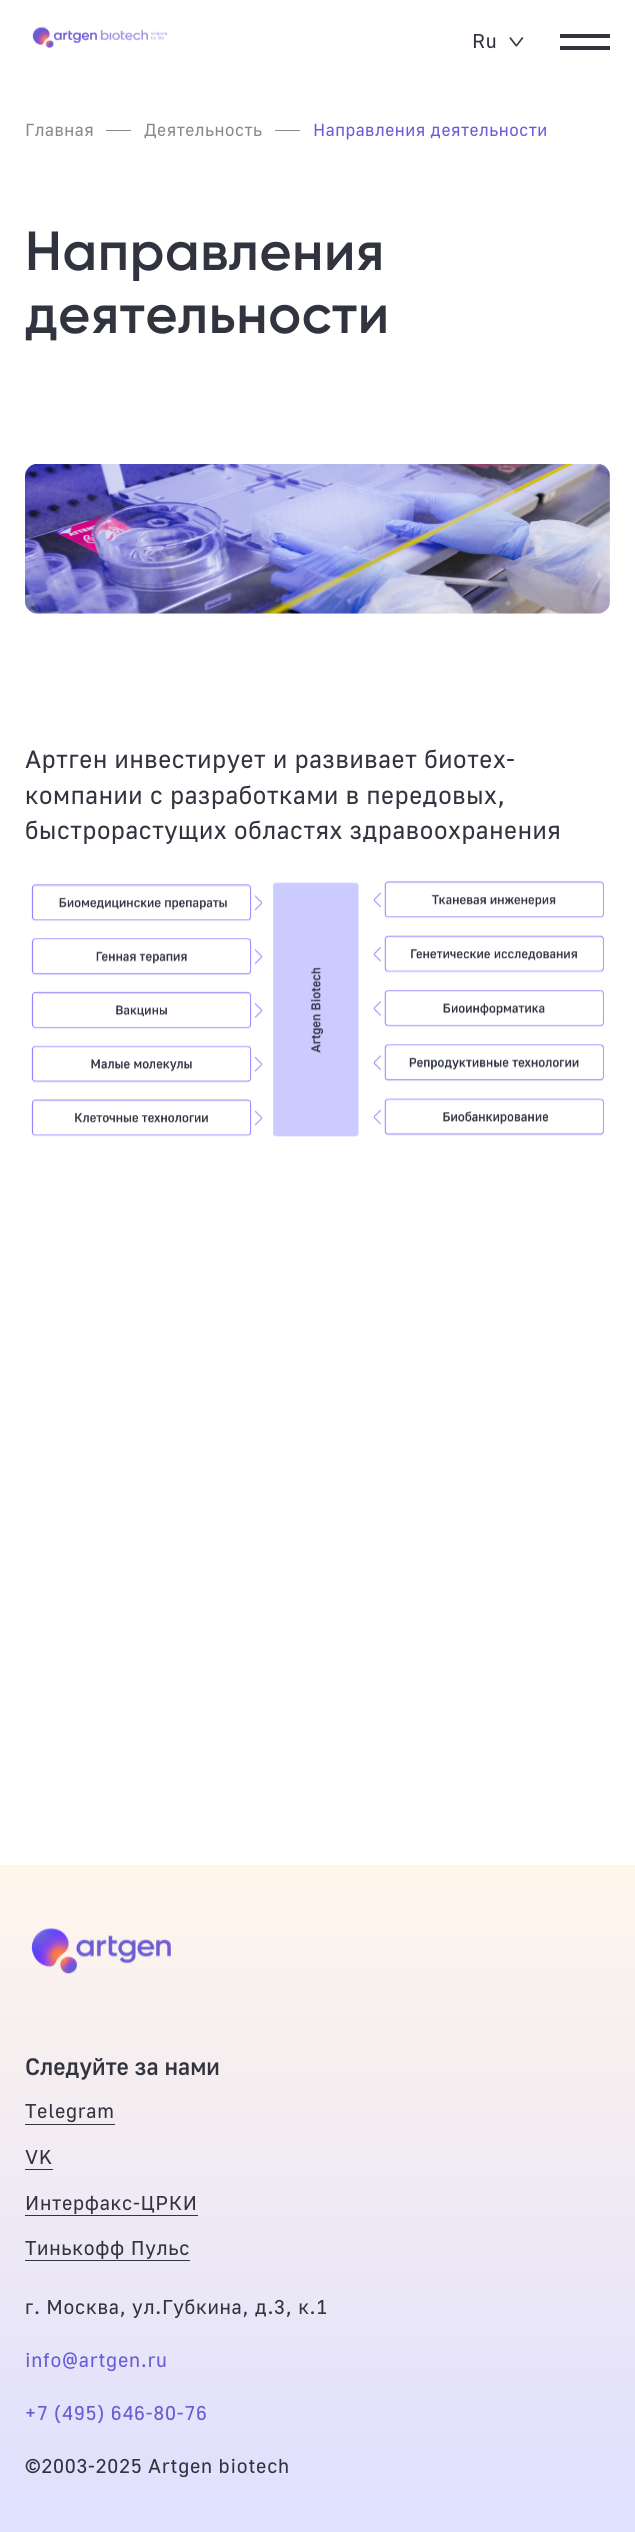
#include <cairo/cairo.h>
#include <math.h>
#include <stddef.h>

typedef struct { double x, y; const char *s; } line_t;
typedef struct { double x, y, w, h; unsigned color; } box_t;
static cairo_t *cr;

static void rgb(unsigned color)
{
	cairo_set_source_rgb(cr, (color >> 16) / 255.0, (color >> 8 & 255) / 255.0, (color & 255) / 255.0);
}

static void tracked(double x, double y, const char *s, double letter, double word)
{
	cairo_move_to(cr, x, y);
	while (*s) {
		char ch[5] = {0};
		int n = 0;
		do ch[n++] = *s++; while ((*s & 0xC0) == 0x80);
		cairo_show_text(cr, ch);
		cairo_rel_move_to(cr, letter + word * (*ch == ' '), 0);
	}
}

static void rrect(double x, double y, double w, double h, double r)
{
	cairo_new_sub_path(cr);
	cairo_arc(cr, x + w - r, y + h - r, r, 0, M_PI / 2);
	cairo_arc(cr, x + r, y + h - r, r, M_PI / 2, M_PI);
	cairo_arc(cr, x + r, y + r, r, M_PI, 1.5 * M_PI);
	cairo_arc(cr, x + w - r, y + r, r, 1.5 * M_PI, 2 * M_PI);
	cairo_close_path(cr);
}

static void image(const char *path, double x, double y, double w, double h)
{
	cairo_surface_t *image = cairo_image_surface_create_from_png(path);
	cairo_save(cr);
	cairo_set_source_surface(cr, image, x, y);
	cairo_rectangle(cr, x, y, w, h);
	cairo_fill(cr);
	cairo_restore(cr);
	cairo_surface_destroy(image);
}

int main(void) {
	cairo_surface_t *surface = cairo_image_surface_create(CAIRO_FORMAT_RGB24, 635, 2532);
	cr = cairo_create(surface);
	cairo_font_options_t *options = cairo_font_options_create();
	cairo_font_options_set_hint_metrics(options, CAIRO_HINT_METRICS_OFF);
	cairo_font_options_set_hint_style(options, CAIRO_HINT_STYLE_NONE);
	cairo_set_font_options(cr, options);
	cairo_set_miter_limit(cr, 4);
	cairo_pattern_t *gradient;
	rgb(0xffffff);
	cairo_paint(cr);
	image("img/1.png", 32, 26, 136, 22);
	image("img/2.png", 509, 37, 15, 10);
	{
		static const box_t items[] = {
			{560, 46, 50, 4, 0x31343f},
			{560, 34, 50, 4, 0x31343f},
			{106, 130, 25, 1, 0x8a8a8a},
			{275, 130, 25, 1, 0x8a8a8a},
		};
		for (size_t i = 0; i < sizeof items / sizeof *items; i++) {
			rgb(items[i].color);
			cairo_rectangle(cr, items[i].x, items[i].y, items[i].w, items[i].h);
			cairo_fill(cr);
		}
	}
	rgb(0xf6f6f6);
	rrect(25, 464, 585, 150, 13);
	cairo_fill(cr);
	image("img/3.png", 25, 464, 585, 150);
	image("img/4.png", 31, 881, 573, 256);
	gradient = cairo_pattern_create_linear(318, 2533, 318, 1865);
	cairo_pattern_add_color_stop_rgba(gradient, 0.04, 0.878, 0.878, 1, 1);
	cairo_pattern_add_color_stop_rgba(gradient, 0.55, 0.945, 0.922, 0.953, 1);
	cairo_pattern_add_color_stop_rgba(gradient, 1, 1, 0.965, 0.922, 1);
	cairo_set_source(cr, gradient);
	cairo_pattern_destroy(gradient);
	cairo_rectangle(cr, 0, 1865, 635, 667);
	cairo_fill(cr);
	image("img/5.png", 31, 1928, 140, 46);
	{
		static const box_t items[] = {
			{25, 2124, 90, 1, 0x31343f},
			{25, 2169, 28, 1, 0x31343f},
			{25, 2215, 173, 1, 0x31343f},
			{25, 2260, 165, 1, 0x31343f},
		};
		for (size_t i = 0; i < sizeof items / sizeof *items; i++) {
			rgb(items[i].color);
			cairo_rectangle(cr, items[i].x, items[i].y, items[i].w, items[i].h);
			cairo_fill(cr);
		}
	}
	cairo_select_font_face(cr, "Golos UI", CAIRO_FONT_SLANT_NORMAL, CAIRO_FONT_WEIGHT_NORMAL);
	cairo_set_font_size(cr, 20);
	tracked(472, 48, "Ru", 0.7, 0);
	cairo_set_font_size(cr, 17.5);
	rgb(0x8a8a8a);
	tracked(25, 136, "Главная", 0.5, 0);
	tracked(144, 136, "Деятельность", 0.5, 0);
	rgb(0x6b5cd6);
	tracked(313, 136, "Направления деятельности", 0.5, 0);
	cairo_select_font_face(cr, "Gilroy SemiBold", CAIRO_FONT_SLANT_NORMAL, CAIRO_FONT_WEIGHT_NORMAL);
	cairo_set_font_size(cr, 55);
	rgb(0x31343f);
	tracked(25, 270, "Направления", 0.6, 0);
	tracked(25, 333, "деятельности", 0.6, 0);
	cairo_select_font_face(cr, "Golos UI", CAIRO_FONT_SLANT_NORMAL, CAIRO_FONT_WEIGHT_NORMAL);
	cairo_set_font_size(cr, 25);
	{
		static const line_t items[] = {
			{25, 768, "Артген инвестирует и развивает биотех-"},
			{25, 804, "компании с разработками в передовых,"},
			{25, 839, "быстрорастущих областях здравоохранения"},
		};
		for (size_t i = 0; i < sizeof items / sizeof *items; i++) {
			tracked(items[i].x, items[i].y, items[i].s, 0.6, 0);
		}
	}
	cairo_select_font_face(cr, "Golos UI Medium", CAIRO_FONT_SLANT_NORMAL, CAIRO_FONT_WEIGHT_NORMAL);
	cairo_set_font_size(cr, 23.75);
	cairo_move_to(cr, 25, 2075);
	cairo_show_text(cr, "Следуйте за нами");
	cairo_select_font_face(cr, "Golos UI", CAIRO_FONT_SLANT_NORMAL, CAIRO_FONT_WEIGHT_NORMAL);
	cairo_set_font_size(cr, 20);
	{
		static const line_t items[] = {
			{25, 2118, "Telegram"},
			{25, 2164, "VK"},
			{25, 2210, "Интерфакс-ЦРКИ"},
			{25, 2255, "Тинькофф Пульс"},
			{25, 2314, "г. Москва, ул.Губкина, д.3, к.1"},
		};
		for (size_t i = 0; i < sizeof items / sizeof *items; i++) {
			tracked(items[i].x, items[i].y, items[i].s, 0.7, 0);
		}
	}
	rgb(0x6b5cd6);
	tracked(25, 2367, "info@artgen.ru", 0.7, 0);
	tracked(25, 2420, "+7 (495) 646-80-76", 0.7, 0);
	rgb(0x31343f);
	tracked(25, 2473, "©2003-2025 Artgen biotech", 0.7, 0);
	cairo_surface_write_to_png(surface, "page.png");
	cairo_font_options_destroy(options);
	cairo_destroy(cr);
	cairo_surface_destroy(surface);
	return 0;
}
